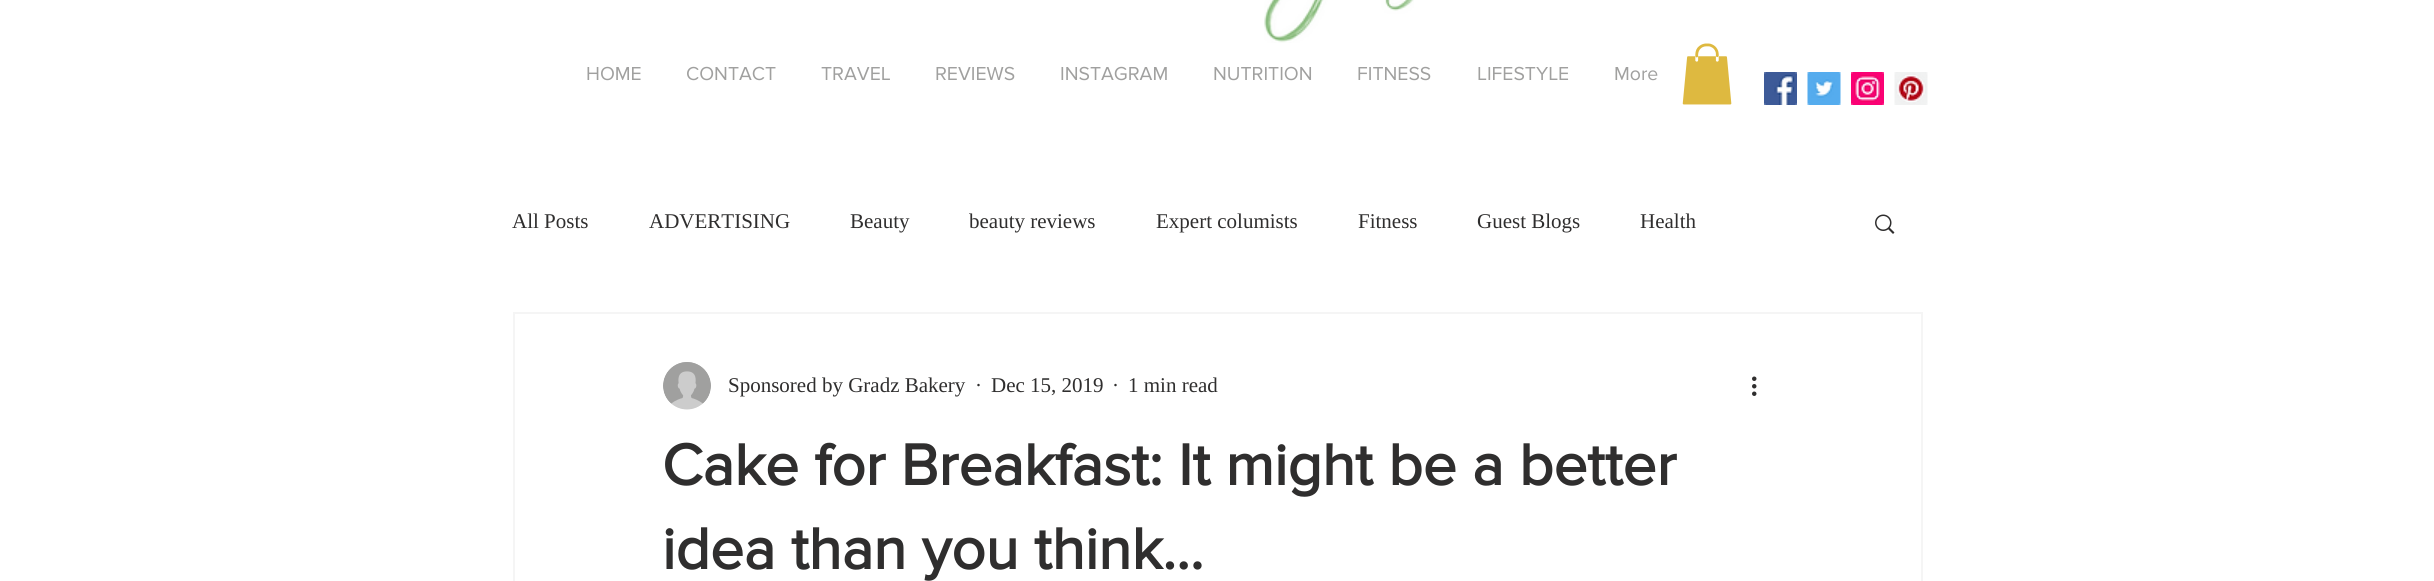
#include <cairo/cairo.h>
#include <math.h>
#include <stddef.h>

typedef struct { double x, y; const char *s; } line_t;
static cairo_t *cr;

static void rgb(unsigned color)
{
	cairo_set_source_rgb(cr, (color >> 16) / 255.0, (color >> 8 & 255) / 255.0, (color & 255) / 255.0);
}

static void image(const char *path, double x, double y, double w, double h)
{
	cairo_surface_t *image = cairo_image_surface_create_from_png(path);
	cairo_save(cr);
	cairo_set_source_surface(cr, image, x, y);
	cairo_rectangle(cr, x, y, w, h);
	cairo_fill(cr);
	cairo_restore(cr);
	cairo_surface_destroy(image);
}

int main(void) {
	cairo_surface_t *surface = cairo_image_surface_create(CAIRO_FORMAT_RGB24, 2434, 581);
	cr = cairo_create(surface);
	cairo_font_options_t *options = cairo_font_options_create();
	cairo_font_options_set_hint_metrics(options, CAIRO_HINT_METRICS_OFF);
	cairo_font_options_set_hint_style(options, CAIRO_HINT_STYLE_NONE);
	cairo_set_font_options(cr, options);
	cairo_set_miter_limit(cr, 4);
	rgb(0xffffff);
	cairo_paint(cr);
	image("img/1.png", 1264, 0, 150, 43);
	image("img/2.png", 1682, 43, 50, 62);
	image("img/3.png", 1764, 72, 33, 33);
	image("img/4.png", 1807, 72, 34, 33);
	image("img/5.png", 1851, 72, 33, 33);
	image("img/6.png", 1894, 72, 34, 33);
	image("img/7.png", 1875, 214, 20, 20);
	cairo_rectangle(cr, 514, 313, 1408, 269);
	rgb(0xf5f5f5);
	cairo_stroke(cr);
	image("img/8.png", 663, 362, 48, 48);
	image("img/9.png", 1752, 376, 5, 20);
	cairo_select_font_face(cr, "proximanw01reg", CAIRO_FONT_SLANT_NORMAL, CAIRO_FONT_WEIGHT_NORMAL);
	cairo_set_font_size(cr, 19.5);
	rgb(0xa0a09f);
	{
		static const line_t items[] = {
			{586, 80, "HOME"},
			{686, 80, "CONTACT"},
			{821, 80, "TRAVEL"},
			{935, 80, "REVIEWS"},
			{1060, 80, "INSTAGRAM"},
			{1213, 80, "NUTRITION"},
			{1357, 80, "FITNESS"},
			{1477, 80, "LIFESTYLE"},
			{1614, 80, "More"},
		};
		for (size_t i = 0; i < sizeof items / sizeof *items; i++) {
			cairo_move_to(cr, items[i].x, items[i].y);
			cairo_show_text(cr, items[i].s);
		}
	}
	cairo_select_font_face(cr, "Liberation Serif", CAIRO_FONT_SLANT_NORMAL, CAIRO_FONT_WEIGHT_NORMAL);
	cairo_set_font_size(cr, 21);
	rgb(0x2f2e2e);
	{
		static const line_t items[] = {
			{512, 228, "All Posts"},
			{649, 228, "ADVERTISING"},
			{850, 228, "Beauty"},
			{969, 228, "beauty reviews"},
			{1156, 228, "Expert columists"},
			{1358, 228, "Fitness"},
			{1477, 228, "Guest Blogs"},
			{1640, 228, "Health"},
			{728, 392, "Sponsored by Gradz Bakery"},
			{975, 392, "·"},
			{991, 392, "Dec 15, 2019"},
			{1112, 392, "·"},
			{1128, 392, "1 min read"},
		};
		for (size_t i = 0; i < sizeof items / sizeof *items; i++) {
			cairo_move_to(cr, items[i].x, items[i].y);
			cairo_show_text(cr, items[i].s);
		}
	}
	cairo_select_font_face(cr, "proximanw01reg", CAIRO_FONT_SLANT_NORMAL, CAIRO_FONT_WEIGHT_BOLD);
	cairo_set_font_size(cr, 60);
	cairo_move_to(cr, 662, 485);
	cairo_show_text(cr, "Cake for Breakfast: It might be a better");
	cairo_move_to(cr, 662, 569);
	cairo_show_text(cr, "idea than you think...");
	cairo_surface_write_to_png(surface, "page.png");
	cairo_font_options_destroy(options);
	cairo_destroy(cr);
	cairo_surface_destroy(surface);
	return 0;
}
